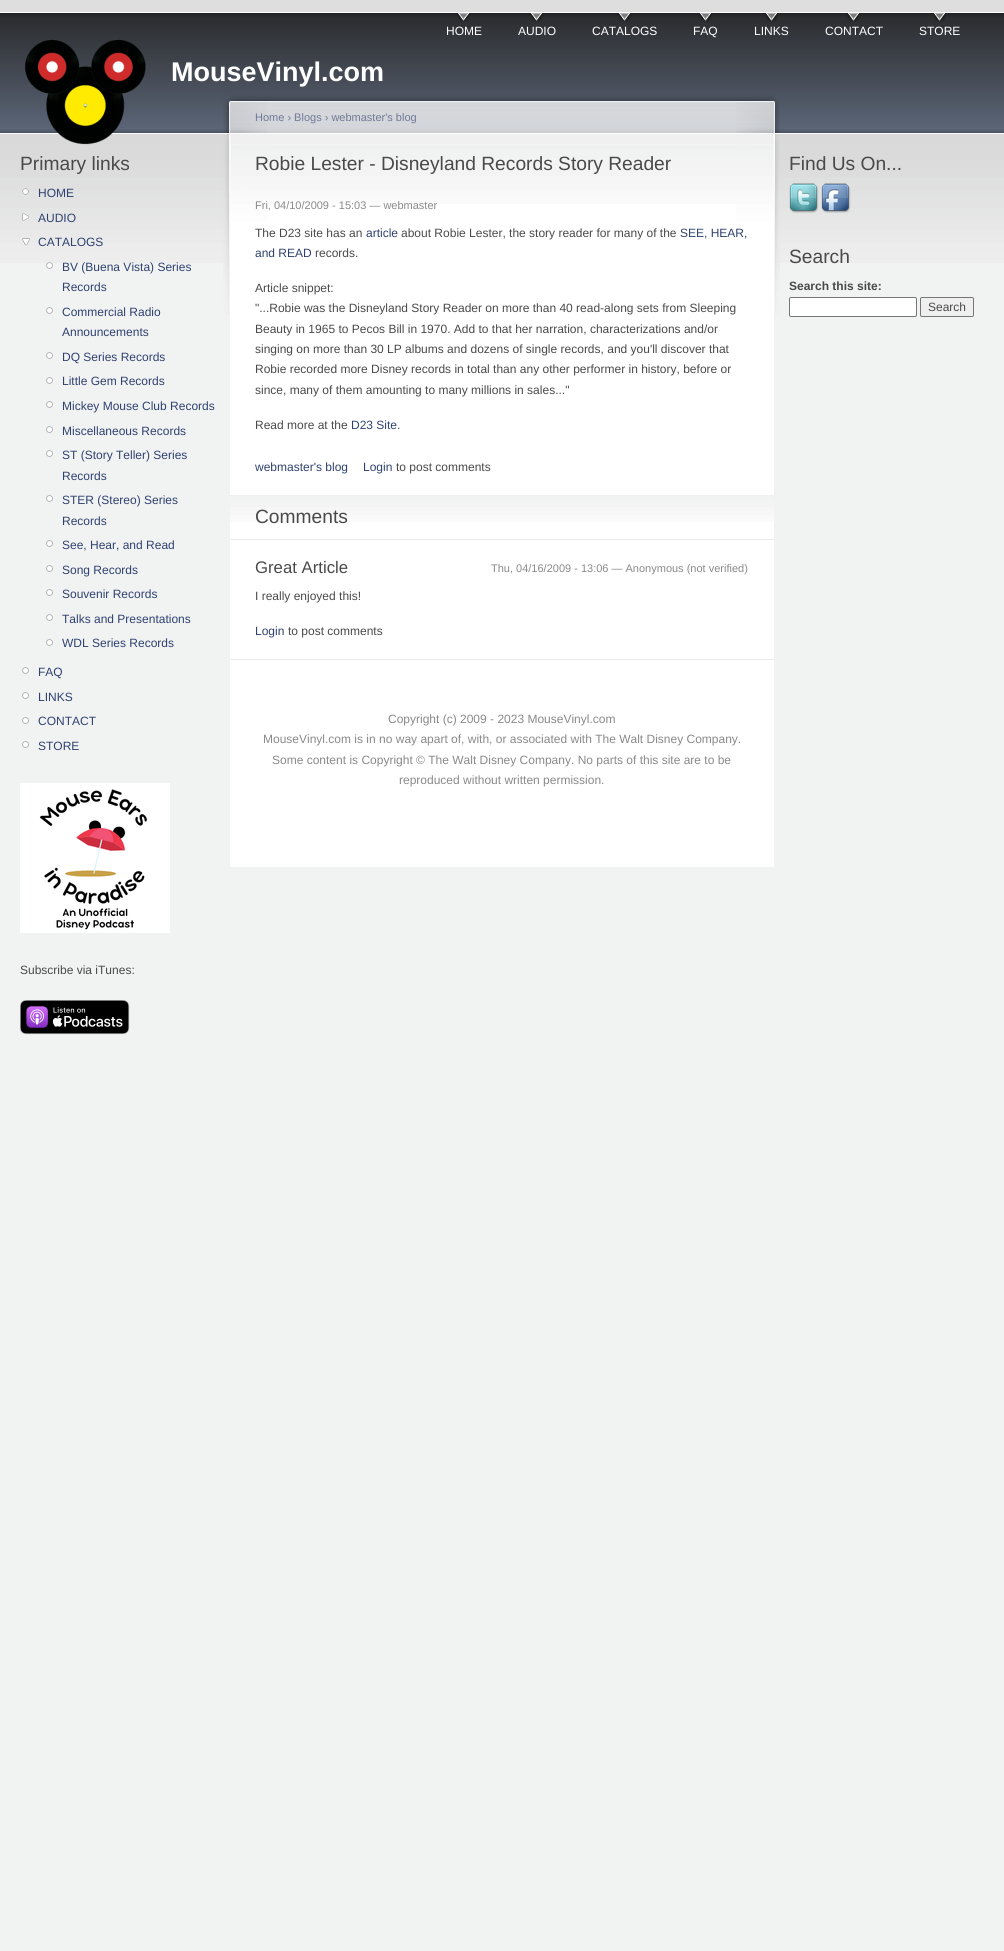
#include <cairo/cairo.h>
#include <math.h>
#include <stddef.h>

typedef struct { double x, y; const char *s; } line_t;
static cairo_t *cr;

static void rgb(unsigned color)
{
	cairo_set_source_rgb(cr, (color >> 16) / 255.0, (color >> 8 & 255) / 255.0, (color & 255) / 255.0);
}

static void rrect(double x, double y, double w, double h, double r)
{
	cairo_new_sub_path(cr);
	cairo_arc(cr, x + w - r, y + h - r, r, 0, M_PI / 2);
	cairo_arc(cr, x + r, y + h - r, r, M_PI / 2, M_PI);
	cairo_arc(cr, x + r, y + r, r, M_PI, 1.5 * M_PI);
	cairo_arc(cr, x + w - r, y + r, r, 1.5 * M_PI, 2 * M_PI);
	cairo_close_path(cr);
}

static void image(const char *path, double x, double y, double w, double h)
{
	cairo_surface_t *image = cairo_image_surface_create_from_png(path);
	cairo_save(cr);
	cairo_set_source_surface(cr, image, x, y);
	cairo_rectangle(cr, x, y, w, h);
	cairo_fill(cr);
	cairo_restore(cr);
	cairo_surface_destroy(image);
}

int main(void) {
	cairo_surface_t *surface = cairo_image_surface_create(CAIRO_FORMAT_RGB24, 1004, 1951);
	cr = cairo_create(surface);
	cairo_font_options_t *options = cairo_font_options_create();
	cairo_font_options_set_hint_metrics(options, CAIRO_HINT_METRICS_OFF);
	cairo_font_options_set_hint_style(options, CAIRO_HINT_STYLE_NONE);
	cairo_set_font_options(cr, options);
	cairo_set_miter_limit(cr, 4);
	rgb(0xf1f2f2);
	cairo_paint(cr);
	rgb(0xdededf);
	cairo_rectangle(cr, 0, 0, 1004, 12);
	cairo_fill(cr);
	image("img/1.png", 0, 12, 1004, 251);
	image("img/2.png", 457, 13, 13, 9);
	image("img/2.png", 530, 13, 13, 9);
	image("img/2.png", 618, 13, 13, 9);
	image("img/2.png", 699, 13, 13, 9);
	image("img/2.png", 765, 13, 13, 9);
	image("img/2.png", 847, 13, 13, 9);
	image("img/2.png", 933, 13, 13, 9);
	image("img/3.png", 24, 39, 122, 106);
	image("img/4.png", 22, 188, 7, 7);
	image("img/5.png", 22, 212, 8, 10);
	image("img/6.png", 22, 238, 8, 8);
	image("img/7.png", 46, 262, 7, 7);
	image("img/8.png", 46, 307, 7, 7);
	image("img/8.png", 46, 352, 7, 7);
	image("img/8.png", 46, 377, 7, 7);
	image("img/8.png", 46, 401, 7, 7);
	image("img/8.png", 46, 426, 7, 7);
	image("img/8.png", 46, 450, 7, 7);
	image("img/8.png", 46, 495, 7, 7);
	image("img/8.png", 46, 540, 7, 7);
	image("img/8.png", 46, 565, 7, 7);
	image("img/8.png", 46, 589, 7, 7);
	image("img/8.png", 46, 614, 7, 7);
	image("img/8.png", 46, 639, 7, 7);
	image("img/8.png", 22, 667, 7, 7);
	image("img/8.png", 22, 692, 7, 7);
	image("img/8.png", 22, 717, 7, 7);
	image("img/8.png", 22, 741, 7, 7);
	image("img/9.png", 20, 783, 150, 150);
	image("img/10.png", 20, 1000, 110, 35);
	rgb(0xffffff);
	cairo_rectangle(cr, 230, 204, 544, 663);
	cairo_fill(cr);
	image("img/11.png", 230, 92, 544, 112);
	image("img/12.png", 736, 98, 44, 216);
	image("img/13.png", 223, 98, 44, 216);
	rgb(0xebebeb);
	cairo_rectangle(cr, 229, 495, 546, 1);
	cairo_fill(cr);
	cairo_rectangle(cr, 230, 659, 544, 1);
	cairo_fill(cr);
	image("img/14.png", 230, 495, 544, 27);
	cairo_rectangle(cr, 230, 539, 544, 1);
	cairo_fill(cr);
	image("img/15.png", 789, 183, 30, 30);
	image("img/16.png", 821, 183, 30, 30);
	rgb(0xffffff);
	rrect(789.5, 297.5, 127, 19, 1.5);
	cairo_fill_preserve(cr);
	rgb(0x767676);
	cairo_set_line_width(cr, 1);
	cairo_stroke(cr);
	rgb(0xefefef);
	rrect(920.5, 297.5, 53, 19, 1.5);
	cairo_fill_preserve(cr);
	rgb(0x767676);
	cairo_stroke(cr);
	cairo_select_font_face(cr, "Liberation Sans", CAIRO_FONT_SLANT_NORMAL, CAIRO_FONT_WEIGHT_NORMAL);
	cairo_set_font_size(cr, 12);
	rgb(0xffffff);
	{
		static const line_t items[] = {
			{446, 35, "HOME"},
			{518, 35, "AUDIO"},
			{592, 35, "CATALOGS"},
			{693, 35, "FAQ"},
			{754, 35, "LINKS"},
			{825, 35, "CONTACT"},
			{919, 35, "STORE"},
		};
		for (size_t i = 0; i < sizeof items / sizeof *items; i++) {
			cairo_move_to(cr, items[i].x, items[i].y);
			cairo_show_text(cr, items[i].s);
		}
	}
	cairo_select_font_face(cr, "Liberation Sans", CAIRO_FONT_SLANT_NORMAL, CAIRO_FONT_WEIGHT_BOLD);
	cairo_set_font_size(cr, 27);
	cairo_move_to(cr, 171, 81);
	cairo_show_text(cr, "MouseVinyl.com");
	cairo_select_font_face(cr, "Liberation Sans", CAIRO_FONT_SLANT_NORMAL, CAIRO_FONT_WEIGHT_NORMAL);
	cairo_set_font_size(cr, 19.2);
	rgb(0x494949);
	cairo_move_to(cr, 20, 170);
	cairo_show_text(cr, "Primary links");
	cairo_set_font_size(cr, 12);
	rgb(0x2f416f);
	{
		static const line_t items[] = {
			{38, 197, "HOME"},
			{38, 222, "AUDIO"},
			{38, 246, "CATALOGS"},
			{62, 271, "BV (Buena Vista) Series"},
			{62, 291, "Records"},
			{62, 316, "Commercial Radio"},
			{62, 336, "Announcements"},
			{62, 361, "DQ Series Records"},
			{62, 385, "Little Gem Records"},
			{62, 410, "Mickey Mouse Club Records"},
			{62, 435, "Miscellaneous Records"},
			{62, 459, "ST (Story Teller) Series"},
			{62, 480, "Records"},
			{62, 504, "STER (Stereo) Series"},
			{62, 525, "Records"},
			{62, 549, "See, Hear, and Read"},
			{62, 574, "Song Records"},
			{62, 598, "Souvenir Records"},
			{62, 623, "Talks and Presentations"},
			{62, 647, "WDL Series Records"},
			{38, 676, "FAQ"},
			{38, 701, "LINKS"},
			{38, 725, "CONTACT"},
			{38, 750, "STORE"},
		};
		for (size_t i = 0; i < sizeof items / sizeof *items; i++) {
			cairo_move_to(cr, items[i].x, items[i].y);
			cairo_show_text(cr, items[i].s);
		}
	}
	rgb(0x494949);
	cairo_move_to(cr, 20, 974);
	cairo_show_text(cr, "Subscribe via iTunes:");
	cairo_set_font_size(cr, 11);
	rgb(0x717999);
	cairo_move_to(cr, 255, 121);
	cairo_show_text(cr, "Home › Blogs › webmaster's blog");
	cairo_set_font_size(cr, 19.2);
	rgb(0x494949);
	cairo_move_to(cr, 255, 170);
	cairo_show_text(cr, "Robie Lester - Disneyland Records Story Reader");
	cairo_set_font_size(cr, 11);
	rgb(0x898989);
	cairo_move_to(cr, 255, 209);
	cairo_show_text(cr, "Fri, 04/10/2009 - 15:03 — webmaster");
	cairo_set_font_size(cr, 12);
	rgb(0x494949);
	cairo_move_to(cr, 255, 237);
	cairo_show_text(cr, "The D23 site has an");
	rgb(0x2f416f);
	cairo_move_to(cr, 366, 237);
	cairo_show_text(cr, "article");
	rgb(0x494949);
	cairo_move_to(cr, 401, 237);
	cairo_show_text(cr, "about Robie Lester, the story reader for many of the");
	rgb(0x2f416f);
	cairo_move_to(cr, 680, 237);
	cairo_show_text(cr, "SEE, HEAR,");
	cairo_move_to(cr, 255, 257);
	cairo_show_text(cr, "and READ");
	rgb(0x494949);
	{
		static const line_t items[] = {
			{315, 257, "records."},
			{255, 292, "Article snippet:"},
			{255, 312, "\"...Robie was the Disneyland Story Reader on more than 40 read-along sets from Sleeping"},
			{255, 333, "Beauty in 1965 to Pecos Bill in 1970. Add to that her narration, characterizations and/or"},
			{255, 353, "singing on more than 30 LP albums and dozens of single records, and you'll discover that"},
			{255, 373, "Robie recorded more Disney records in total than any other performer in history, before or"},
			{255, 394, "since, many of them amounting to many millions in sales...\""},
			{255, 429, "Read more at the"},
		};
		for (size_t i = 0; i < sizeof items / sizeof *items; i++) {
			cairo_move_to(cr, items[i].x, items[i].y);
			cairo_show_text(cr, items[i].s);
		}
	}
	rgb(0x2f416f);
	cairo_move_to(cr, 351, 429);
	cairo_show_text(cr, "D23 Site");
	rgb(0x494949);
	cairo_move_to(cr, 397, 429);
	cairo_show_text(cr, ".");
	rgb(0x2f416f);
	cairo_move_to(cr, 255, 471);
	cairo_show_text(cr, "webmaster's blog");
	cairo_move_to(cr, 363, 471);
	cairo_show_text(cr, "Login");
	rgb(0x494949);
	cairo_move_to(cr, 396, 471);
	cairo_show_text(cr, "to post comments");
	cairo_set_font_size(cr, 19.2);
	cairo_move_to(cr, 255, 523);
	cairo_show_text(cr, "Comments");
	cairo_set_font_size(cr, 16.75);
	cairo_move_to(cr, 255, 573);
	cairo_show_text(cr, "Great Article");
	cairo_set_font_size(cr, 11);
	rgb(0x898989);
	cairo_move_to(cr, 491, 572);
	cairo_show_text(cr, "Thu, 04/16/2009 - 13:06 — Anonymous (not verified)");
	cairo_set_font_size(cr, 12);
	rgb(0x494949);
	cairo_move_to(cr, 255, 600);
	cairo_show_text(cr, "I really enjoyed this!");
	rgb(0x2f416f);
	cairo_move_to(cr, 255, 635);
	cairo_show_text(cr, "Login");
	rgb(0x494949);
	cairo_move_to(cr, 288, 635);
	cairo_show_text(cr, "to post comments");
	rgb(0x898989);
	{
		static const line_t items[] = {
			{388, 723, "Copyright (c) 2009 - 2023 MouseVinyl.com"},
			{263, 743, "MouseVinyl.com is in no way apart of, with, or associated with The Walt Disney Company."},
			{272, 764, "Some content is Copyright © The Walt Disney Company. No parts of this site are to be"},
			{399, 784, "reproduced without written permission."},
		};
		for (size_t i = 0; i < sizeof items / sizeof *items; i++) {
			cairo_move_to(cr, items[i].x, items[i].y);
			cairo_show_text(cr, items[i].s);
		}
	}
	cairo_set_font_size(cr, 19.2);
	rgb(0x494949);
	cairo_move_to(cr, 789, 170);
	cairo_show_text(cr, "Find Us On...");
	cairo_move_to(cr, 789, 263);
	cairo_show_text(cr, "Search");
	cairo_select_font_face(cr, "Liberation Sans", CAIRO_FONT_SLANT_NORMAL, CAIRO_FONT_WEIGHT_BOLD);
	cairo_set_font_size(cr, 12);
	cairo_move_to(cr, 789, 290);
	cairo_show_text(cr, "Search this site:");
	cairo_select_font_face(cr, "Liberation Sans", CAIRO_FONT_SLANT_NORMAL, CAIRO_FONT_WEIGHT_NORMAL);
	cairo_move_to(cr, 928, 311);
	cairo_show_text(cr, "Search");
	cairo_surface_write_to_png(surface, "page.png");
	cairo_font_options_destroy(options);
	cairo_destroy(cr);
	cairo_surface_destroy(surface);
	return 0;
}
